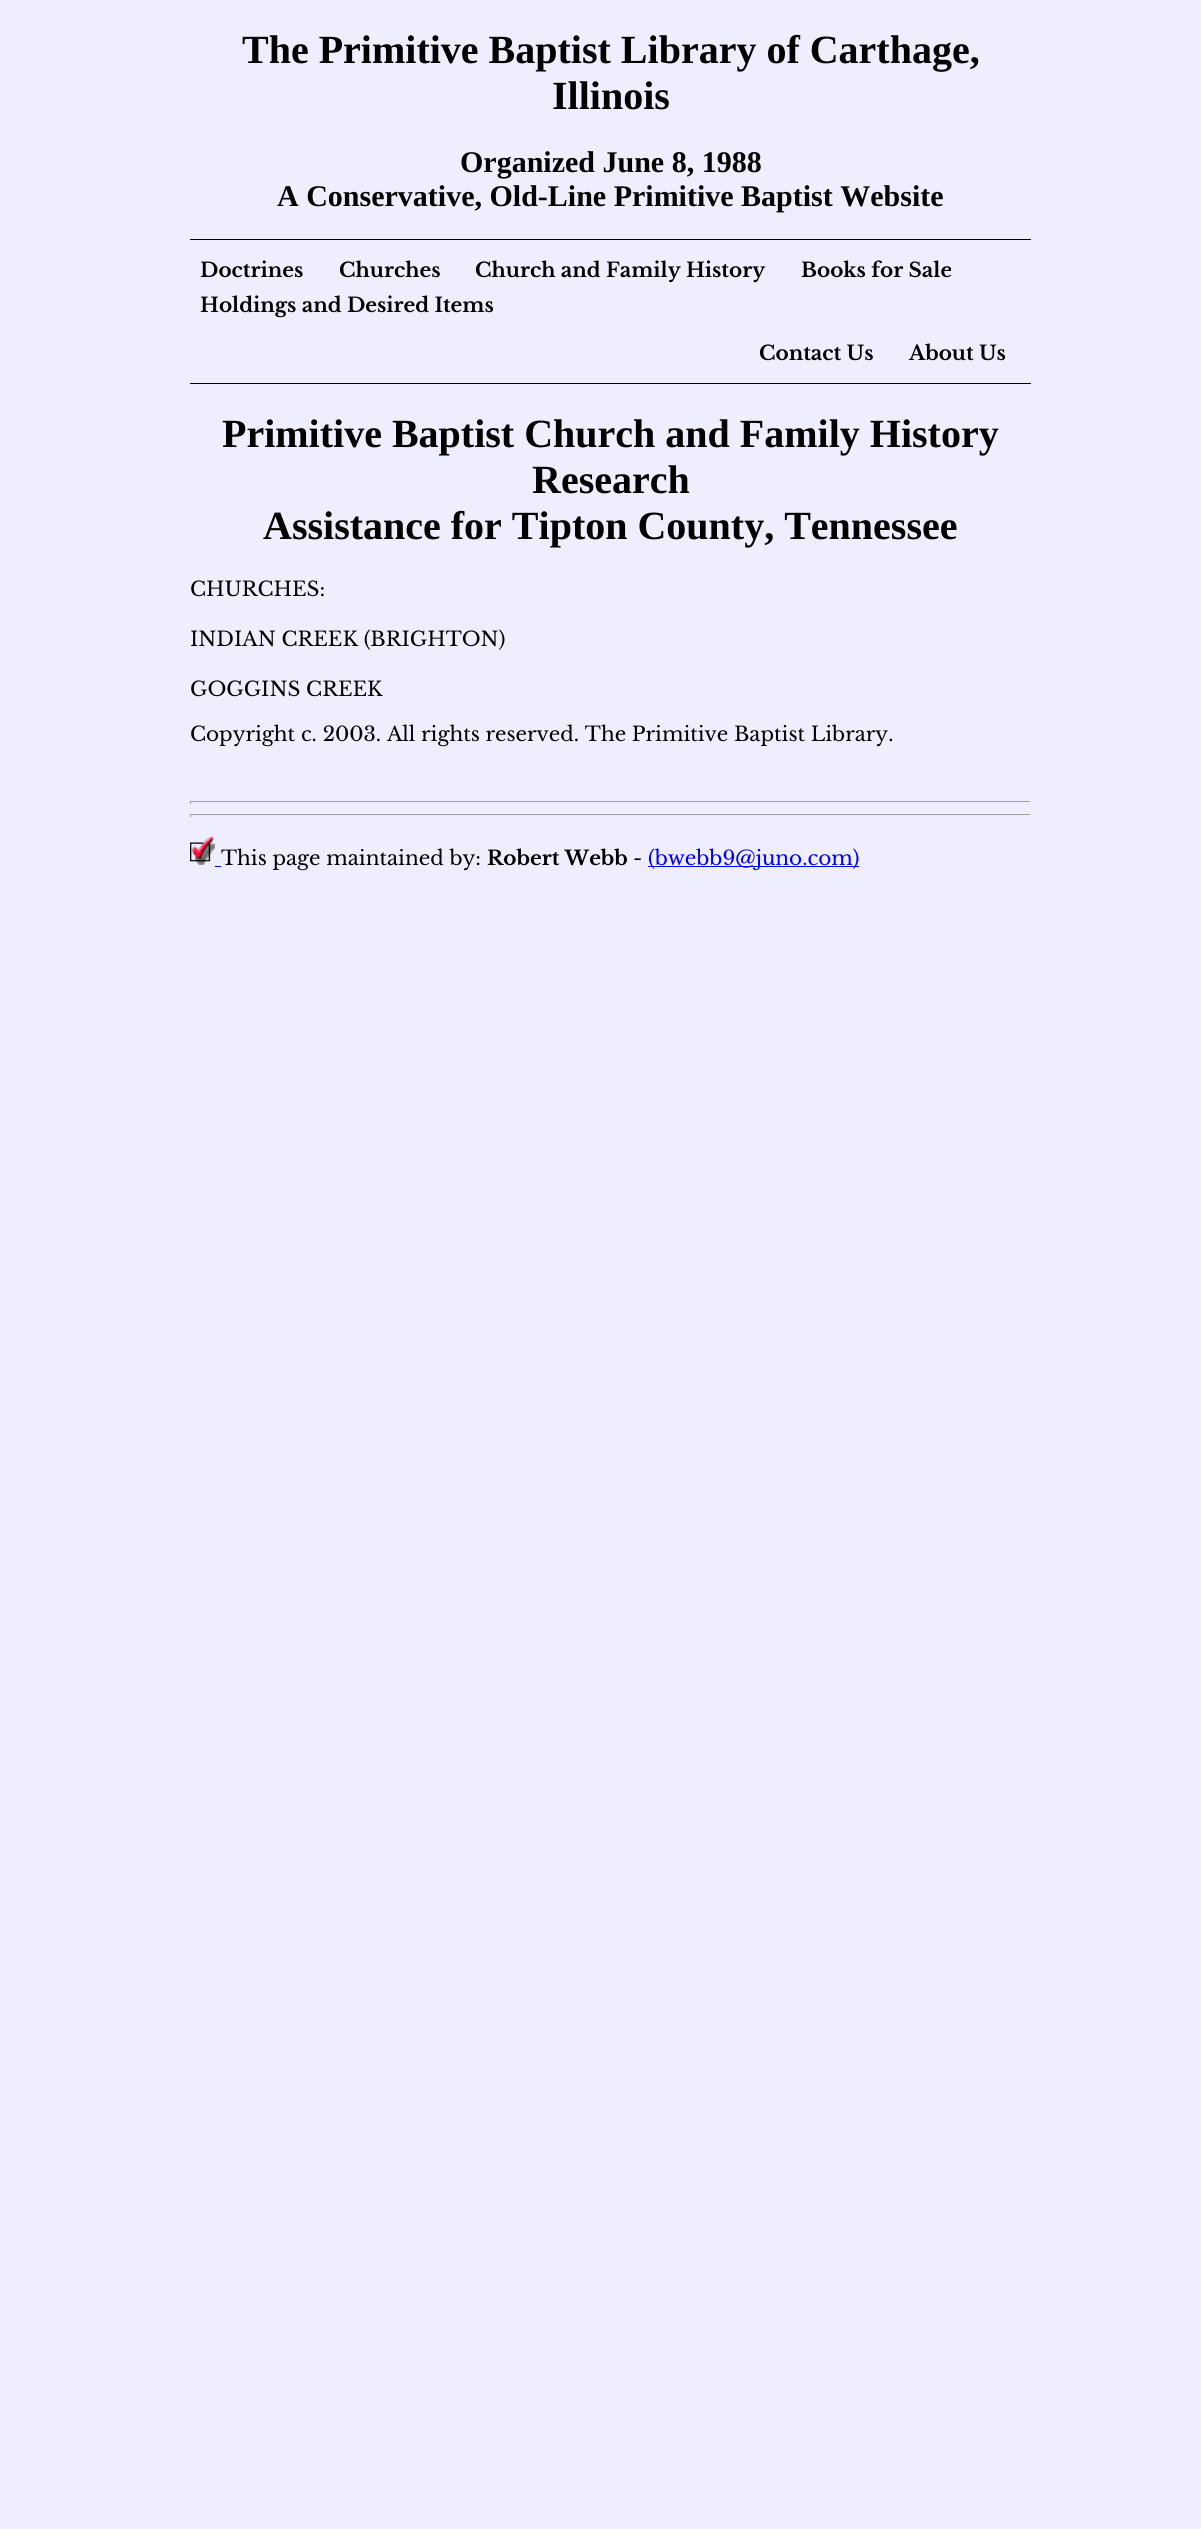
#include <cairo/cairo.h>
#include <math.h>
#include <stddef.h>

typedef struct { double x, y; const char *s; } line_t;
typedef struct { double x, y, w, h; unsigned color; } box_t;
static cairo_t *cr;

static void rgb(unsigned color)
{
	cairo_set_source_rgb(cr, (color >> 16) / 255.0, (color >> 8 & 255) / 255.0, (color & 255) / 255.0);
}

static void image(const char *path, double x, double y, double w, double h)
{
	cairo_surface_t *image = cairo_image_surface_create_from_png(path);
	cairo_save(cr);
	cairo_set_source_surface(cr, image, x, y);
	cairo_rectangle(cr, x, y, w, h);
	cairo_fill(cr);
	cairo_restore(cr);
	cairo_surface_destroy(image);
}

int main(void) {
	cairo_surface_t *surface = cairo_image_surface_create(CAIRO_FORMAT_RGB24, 1201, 2529);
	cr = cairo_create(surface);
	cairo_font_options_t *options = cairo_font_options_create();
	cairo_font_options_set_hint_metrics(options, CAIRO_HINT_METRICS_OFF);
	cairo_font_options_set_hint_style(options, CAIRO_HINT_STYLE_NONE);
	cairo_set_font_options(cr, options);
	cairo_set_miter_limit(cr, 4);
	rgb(0xeeeeff);
	cairo_paint(cr);
	{
		static const box_t items[] = {
			{190, 239, 841, 1, 0x000000},
			{190, 383, 841, 1, 0x000000},
			{190, 801, 841, 1, 0x9f9f9f},
			{1030, 801, 1, 3, 0xeeeeee},
			{190, 803, 841, 1, 0xeeeeee},
			{190, 801, 1, 3, 0x9f9f9f},
			{190, 814, 841, 1, 0x9f9f9f},
			{1030, 814, 1, 3, 0xeeeeee},
			{190, 815, 841, 1, 0xeeeeee},
			{190, 814, 1, 3, 0x9f9f9f},
		};
		for (size_t i = 0; i < sizeof items / sizeof *items; i++) {
			rgb(items[i].color);
			cairo_rectangle(cr, items[i].x, items[i].y, items[i].w, items[i].h);
			cairo_fill(cr);
		}
	}
	image("img/1.png", 190, 836, 25, 29);
	rgb(0x0000ee);
	cairo_rectangle(cr, 648, 866, 211, 1);
	cairo_fill(cr);
	cairo_rectangle(cr, 215, 866, 6, 1);
	cairo_fill(cr);
	cairo_select_font_face(cr, "Liberation Serif", CAIRO_FONT_SLANT_NORMAL, CAIRO_FONT_WEIGHT_BOLD);
	cairo_set_font_size(cr, 40);
	rgb(0x000000);
	cairo_move_to(cr, 242, 63);
	cairo_show_text(cr, "The Primitive Baptist Library of Carthage,");
	cairo_move_to(cr, 552, 109);
	cairo_show_text(cr, "Illinois");
	cairo_set_font_size(cr, 30);
	cairo_move_to(cr, 460, 172);
	cairo_show_text(cr, "Organized June 8, 1988");
	cairo_move_to(cr, 277, 206);
	cairo_show_text(cr, "A Conservative, Old-Line Primitive Baptist Website");
	cairo_select_font_face(cr, "Libre Baskerville", CAIRO_FONT_SLANT_NORMAL, CAIRO_FONT_WEIGHT_BOLD);
	cairo_set_font_size(cr, 20);
	{
		static const line_t items[] = {
			{200, 277, "Doctrines"},
			{339, 277, "Churches"},
			{475, 277, "Church and Family History"},
			{801, 277, "Books for Sale"},
			{200, 312, "Holdings and Desired Items"},
			{759, 360, "Contact Us"},
			{909, 360, "About Us"},
		};
		for (size_t i = 0; i < sizeof items / sizeof *items; i++) {
			cairo_move_to(cr, items[i].x, items[i].y);
			cairo_show_text(cr, items[i].s);
		}
	}
	cairo_select_font_face(cr, "Liberation Serif", CAIRO_FONT_SLANT_NORMAL, CAIRO_FONT_WEIGHT_BOLD);
	cairo_set_font_size(cr, 40);
	{
		static const line_t items[] = {
			{222, 447, "Primitive Baptist Church and Family History"},
			{532, 493, "Research"},
			{263, 539, "Assistance for Tipton County, Tennessee"},
		};
		for (size_t i = 0; i < sizeof items / sizeof *items; i++) {
			cairo_move_to(cr, items[i].x, items[i].y);
			cairo_show_text(cr, items[i].s);
		}
	}
	cairo_select_font_face(cr, "Libre Baskerville", CAIRO_FONT_SLANT_NORMAL, CAIRO_FONT_WEIGHT_NORMAL);
	cairo_set_font_size(cr, 20);
	{
		static const line_t items[] = {
			{190, 596, "CHURCHES:"},
			{190, 646, "INDIAN CREEK (BRIGHTON)"},
			{190, 696, "GOGGINS CREEK"},
			{190, 741, "Copyright c. 2003. All rights reserved. The Primitive Baptist Library."},
			{221, 865, "This page maintained by:"},
		};
		for (size_t i = 0; i < sizeof items / sizeof *items; i++) {
			cairo_move_to(cr, items[i].x, items[i].y);
			cairo_show_text(cr, items[i].s);
		}
	}
	cairo_select_font_face(cr, "Libre Baskerville", CAIRO_FONT_SLANT_NORMAL, CAIRO_FONT_WEIGHT_BOLD);
	cairo_move_to(cr, 487, 865);
	cairo_show_text(cr, "Robert Webb");
	cairo_select_font_face(cr, "Libre Baskerville", CAIRO_FONT_SLANT_NORMAL, CAIRO_FONT_WEIGHT_NORMAL);
	cairo_move_to(cr, 633, 865);
	cairo_show_text(cr, "-");
	rgb(0x0000ee);
	cairo_move_to(cr, 648, 865);
	cairo_show_text(cr, "(bwebb9@juno.com)");
	cairo_surface_write_to_png(surface, "page.png");
	cairo_font_options_destroy(options);
	cairo_destroy(cr);
	cairo_surface_destroy(surface);
	return 0;
}
